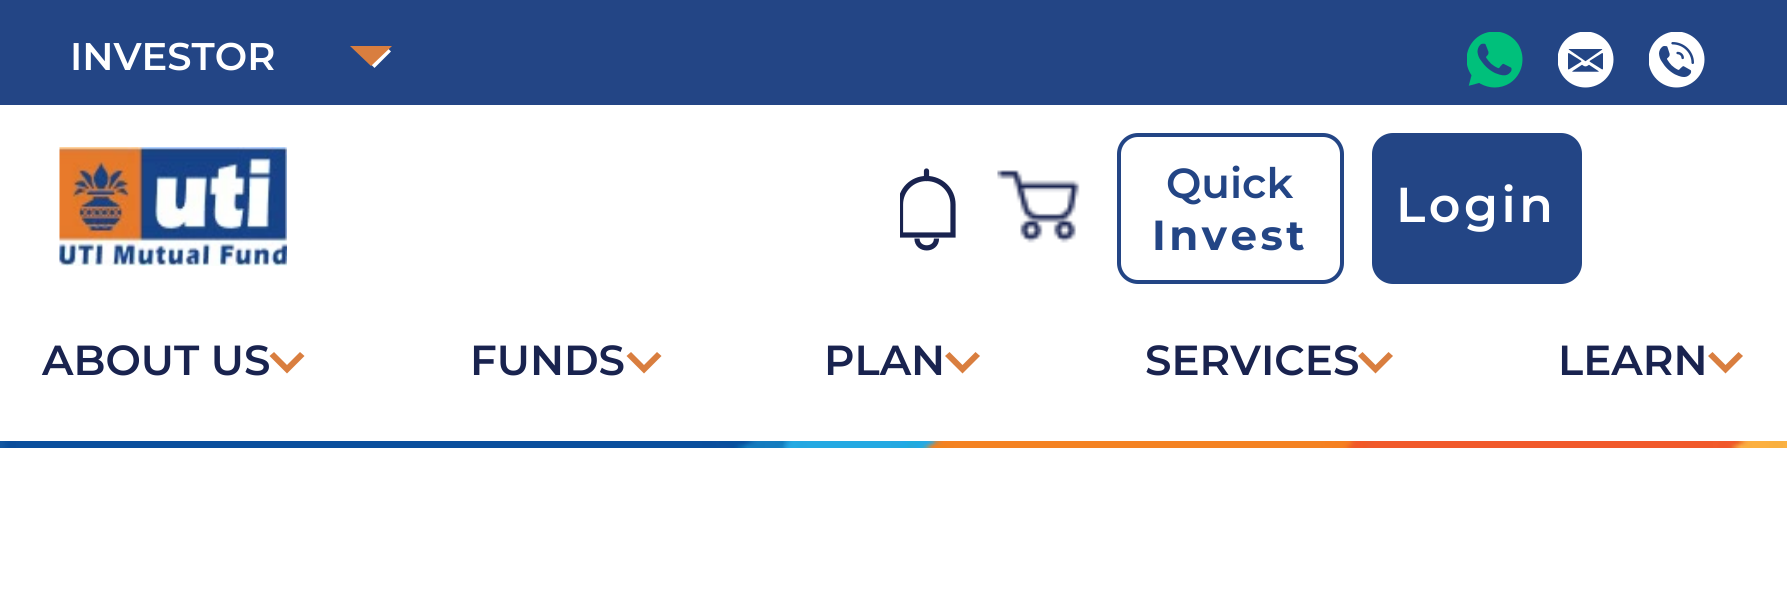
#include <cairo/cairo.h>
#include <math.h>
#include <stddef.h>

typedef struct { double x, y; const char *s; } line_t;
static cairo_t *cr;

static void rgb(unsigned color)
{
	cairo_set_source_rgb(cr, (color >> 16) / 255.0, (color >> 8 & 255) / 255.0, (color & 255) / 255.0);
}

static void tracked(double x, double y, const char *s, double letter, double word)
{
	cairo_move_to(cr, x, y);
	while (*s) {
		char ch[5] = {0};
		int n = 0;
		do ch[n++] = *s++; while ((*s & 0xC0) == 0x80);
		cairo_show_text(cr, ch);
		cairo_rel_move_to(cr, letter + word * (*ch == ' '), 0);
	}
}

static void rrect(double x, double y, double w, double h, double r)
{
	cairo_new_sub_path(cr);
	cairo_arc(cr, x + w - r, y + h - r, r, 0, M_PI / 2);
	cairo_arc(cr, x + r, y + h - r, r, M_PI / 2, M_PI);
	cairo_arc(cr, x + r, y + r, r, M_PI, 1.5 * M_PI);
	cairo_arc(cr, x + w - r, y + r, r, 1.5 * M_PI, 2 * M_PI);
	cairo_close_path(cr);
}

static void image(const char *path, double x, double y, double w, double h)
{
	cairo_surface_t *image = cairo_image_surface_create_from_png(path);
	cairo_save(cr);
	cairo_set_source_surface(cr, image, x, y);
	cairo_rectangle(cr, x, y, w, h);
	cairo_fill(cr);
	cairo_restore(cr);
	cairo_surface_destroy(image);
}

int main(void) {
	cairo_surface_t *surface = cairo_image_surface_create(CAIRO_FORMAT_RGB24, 1787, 593);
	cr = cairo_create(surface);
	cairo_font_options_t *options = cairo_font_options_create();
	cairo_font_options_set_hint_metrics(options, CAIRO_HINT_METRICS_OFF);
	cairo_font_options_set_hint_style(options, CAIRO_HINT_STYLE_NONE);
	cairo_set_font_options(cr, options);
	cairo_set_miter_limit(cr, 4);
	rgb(0xffffff);
	cairo_paint(cr);
	rgb(0x234585);
	cairo_rectangle(cr, 0, 0, 1787, 105);
	cairo_fill(cr);
	cairo_new_path(cr);
	cairo_move_to(cr, 360.5, 49);
	cairo_line_to(cr, 374.5, 63);
	cairo_line_to(cr, 388.5, 49);
	rgb(0xffffff);
	cairo_set_line_width(cr, 7);
	cairo_stroke(cr);
	rgb(0xd97e3f);
	cairo_new_path(cr);
	cairo_move_to(cr, 350, 46);
	cairo_line_to(cr, 392, 46);
	cairo_line_to(cr, 371, 66);
	cairo_close_path(cr);
	cairo_fill(cr);
	image("img/1.png", 1467, 32, 56, 56);
	image("img/2.png", 1558, 32, 56, 56);
	image("img/3.png", 1649, 32, 56, 56);
	image("img/4.png", 59, 147, 228, 119);
	cairo_save(cr);
	cairo_rectangle(cr, 900, 165, 63, 87);
	cairo_clip(cr);
	cairo_new_path(cr);
	cairo_move_to(cr, 900.5, 204.5);
	cairo_curve_to(cr, 900.5, 190, 912, 178.5, 926.5, 178.5);
	cairo_curve_to(cr, 941, 178.5, 953, 190, 953, 204.5);
	cairo_line_to(cr, 953, 235);
	cairo_line_to(cr, 900.5, 235);
	cairo_close_path(cr);
	rgb(0x19234f);
	cairo_set_line_width(cr, 5.2);
	cairo_stroke(cr);
	cairo_restore(cr);
	cairo_new_path(cr);
	cairo_move_to(cr, 926.5, 178.5);
	cairo_line_to(cr, 926.5, 171);
	rgb(0x19234f);
	cairo_set_line_width(cr, 5.2);
	cairo_set_line_cap(cr, CAIRO_LINE_CAP_ROUND);
	cairo_stroke(cr);
	cairo_new_path(cr);
	cairo_move_to(cr, 917, 238.5);
	cairo_curve_to(cr, 917, 251, 936.5, 251, 936.5, 238.5);
	cairo_set_line_cap(cr, CAIRO_LINE_CAP_BUTT);
	cairo_stroke(cr);
	image("img/5.png", 997, 170, 83, 73);
	rrect(1119, 135, 223, 147, 19);
	rgb(0x234585);
	cairo_set_line_width(cr, 4);
	cairo_stroke(cr);
	rrect(1374, 135, 206, 147, 19);
	cairo_fill_preserve(cr);
	cairo_stroke(cr);
	rgb(0xd97e3f);
	cairo_new_path(cr);
	cairo_move_to(cr, 274, 352);
	cairo_line_to(cr, 287, 365);
	cairo_line_to(cr, 300, 352);
	cairo_line_to(cr, 304.5, 356);
	cairo_line_to(cr, 287, 373.5);
	cairo_line_to(cr, 269.5, 356);
	cairo_close_path(cr);
	cairo_fill(cr);
	cairo_new_path(cr);
	cairo_move_to(cr, 631, 352);
	cairo_line_to(cr, 644, 365);
	cairo_line_to(cr, 657, 352);
	cairo_line_to(cr, 661.5, 356);
	cairo_line_to(cr, 644, 373.5);
	cairo_line_to(cr, 626.5, 356);
	cairo_close_path(cr);
	cairo_fill(cr);
	cairo_new_path(cr);
	cairo_move_to(cr, 949.5, 352);
	cairo_line_to(cr, 962.5, 365);
	cairo_line_to(cr, 975.5, 352);
	cairo_line_to(cr, 980, 356);
	cairo_line_to(cr, 962.5, 373.5);
	cairo_line_to(cr, 945, 356);
	cairo_close_path(cr);
	cairo_fill(cr);
	cairo_new_path(cr);
	cairo_move_to(cr, 1362.5, 352);
	cairo_line_to(cr, 1375.5, 365);
	cairo_line_to(cr, 1388.5, 352);
	cairo_line_to(cr, 1393, 356);
	cairo_line_to(cr, 1375.5, 373.5);
	cairo_line_to(cr, 1358, 356);
	cairo_close_path(cr);
	cairo_fill(cr);
	cairo_new_path(cr);
	cairo_move_to(cr, 1712.5, 352);
	cairo_line_to(cr, 1725.5, 365);
	cairo_line_to(cr, 1738.5, 352);
	cairo_line_to(cr, 1743, 356);
	cairo_line_to(cr, 1725.5, 373.5);
	cairo_line_to(cr, 1708, 356);
	cairo_close_path(cr);
	cairo_fill(cr);
	image("img/6.png", 0, 441, 1787, 7);
	cairo_select_font_face(cr, "Montserrat SemiBold", CAIRO_FONT_SLANT_NORMAL, CAIRO_FONT_WEIGHT_NORMAL);
	cairo_set_font_size(cr, 38.5);
	rgb(0xffffff);
	cairo_move_to(cr, 70, 70);
	cairo_show_text(cr, "INVESTOR");
	cairo_set_font_size(cr, 42);
	rgb(0x234585);
	cairo_move_to(cr, 1166, 198);
	cairo_show_text(cr, "Quick");
	cairo_select_font_face(cr, "Montserrat", CAIRO_FONT_SLANT_NORMAL, CAIRO_FONT_WEIGHT_BOLD);
	tracked(1152, 250, "Invest", 3.5, 0);
	cairo_select_font_face(cr, "Montserrat SemiBold", CAIRO_FONT_SLANT_NORMAL, CAIRO_FONT_WEIGHT_NORMAL);
	cairo_set_font_size(cr, 49);
	rgb(0xffffff);
	tracked(1396, 222, "Login", 3.5, 0);
	cairo_set_font_size(cr, 42);
	rgb(0x19234f);
	{
		static const line_t items[] = {
			{42, 375, "ABOUT US"},
			{470, 375, "FUNDS"},
			{824, 375, "PLAN"},
			{1145, 375, "SERVICES"},
			{1558, 375, "LEARN"},
		};
		for (size_t i = 0; i < sizeof items / sizeof *items; i++) {
			cairo_move_to(cr, items[i].x, items[i].y);
			cairo_show_text(cr, items[i].s);
		}
	}
	cairo_surface_write_to_png(surface, "page.png");
	cairo_font_options_destroy(options);
	cairo_destroy(cr);
	cairo_surface_destroy(surface);
	return 0;
}
